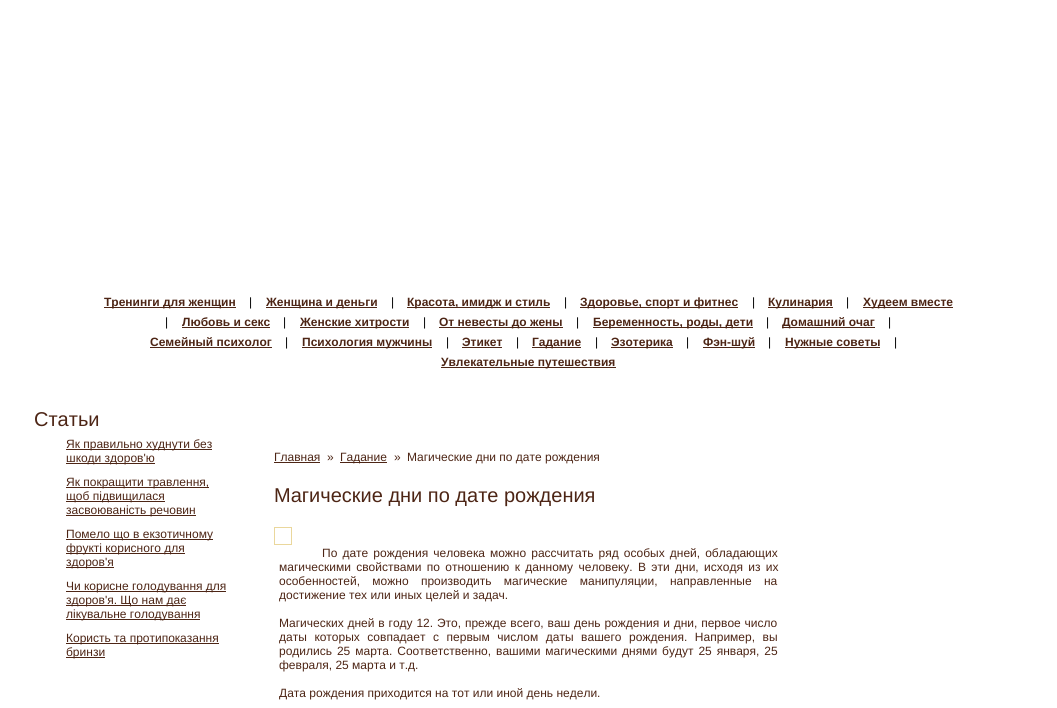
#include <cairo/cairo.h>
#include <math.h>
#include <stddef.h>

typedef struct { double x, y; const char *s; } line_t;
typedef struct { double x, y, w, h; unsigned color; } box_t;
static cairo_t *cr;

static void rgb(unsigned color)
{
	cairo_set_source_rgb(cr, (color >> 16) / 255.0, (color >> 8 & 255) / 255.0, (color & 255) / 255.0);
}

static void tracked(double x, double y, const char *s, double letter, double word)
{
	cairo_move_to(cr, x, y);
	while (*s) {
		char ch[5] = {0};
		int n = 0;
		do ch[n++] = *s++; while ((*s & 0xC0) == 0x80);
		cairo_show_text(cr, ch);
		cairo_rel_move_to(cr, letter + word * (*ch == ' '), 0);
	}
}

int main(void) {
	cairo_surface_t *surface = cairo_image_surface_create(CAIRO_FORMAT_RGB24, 1057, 708);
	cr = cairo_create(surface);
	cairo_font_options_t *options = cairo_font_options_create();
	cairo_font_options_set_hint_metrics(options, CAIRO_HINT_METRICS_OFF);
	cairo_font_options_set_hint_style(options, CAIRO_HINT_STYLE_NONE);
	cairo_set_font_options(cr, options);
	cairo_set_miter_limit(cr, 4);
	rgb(0xffffff);
	cairo_paint(cr);
	{
		static const box_t items[] = {
			{104, 307, 132, 1, 0x4d2515},
			{266, 307, 111, 1, 0x4d2515},
			{407, 307, 143, 1, 0x4d2515},
			{580, 307, 158, 1, 0x4d2515},
			{768, 307, 65, 1, 0x4d2515},
			{863, 307, 90, 1, 0x4d2515},
			{182, 327, 88, 1, 0x4d2515},
			{300, 327, 109, 1, 0x4d2515},
			{439, 327, 124, 1, 0x4d2515},
			{593, 327, 160, 1, 0x4d2515},
			{782, 327, 93, 1, 0x4d2515},
			{150, 347, 122, 1, 0x4d2515},
			{302, 347, 130, 1, 0x4d2515},
			{462, 347, 40, 1, 0x4d2515},
			{532, 347, 49, 1, 0x4d2515},
			{611, 347, 62, 1, 0x4d2515},
			{703, 347, 52, 1, 0x4d2515},
			{785, 347, 95, 1, 0x4d2515},
			{441, 367, 175, 1, 0x4d2515},
			{66, 449, 146, 1, 0x4d2515},
			{66, 463, 89, 1, 0x4d2515},
			{66, 487, 143, 1, 0x4d2515},
			{66, 501, 99, 1, 0x4d2515},
			{66, 515, 130, 1, 0x4d2515},
			{66, 539, 147, 1, 0x4d2515},
			{66, 553, 119, 1, 0x4d2515},
			{66, 567, 48, 1, 0x4d2515},
			{66, 591, 160, 1, 0x4d2515},
			{66, 605, 120, 1, 0x4d2515},
			{66, 619, 134, 1, 0x4d2515},
			{66, 643, 153, 1, 0x4d2515},
			{66, 657, 39, 1, 0x4d2515},
			{274, 462, 46, 1, 0x4d2515},
			{340, 462, 47, 1, 0x4d2515},
		};
		for (size_t i = 0; i < sizeof items / sizeof *items; i++) {
			rgb(items[i].color);
			cairo_rectangle(cr, items[i].x, items[i].y, items[i].w, items[i].h);
			cairo_fill(cr);
		}
	}
	cairo_rectangle(cr, 274.5, 527.5, 17, 17);
	rgb(0xead79c);
	cairo_set_line_width(cr, 1);
	cairo_stroke(cr);
	cairo_select_font_face(cr, "Liberation Sans", CAIRO_FONT_SLANT_NORMAL, CAIRO_FONT_WEIGHT_BOLD);
	cairo_set_font_size(cr, 12);
	rgb(0x4d2515);
	cairo_move_to(cr, 104, 306);
	cairo_show_text(cr, "Тренинги для женщин");
	cairo_select_font_face(cr, "Liberation Sans", CAIRO_FONT_SLANT_NORMAL, CAIRO_FONT_WEIGHT_NORMAL);
	rgb(0x000000);
	cairo_move_to(cr, 249, 306);
	cairo_show_text(cr, "|");
	cairo_select_font_face(cr, "Liberation Sans", CAIRO_FONT_SLANT_NORMAL, CAIRO_FONT_WEIGHT_BOLD);
	rgb(0x4d2515);
	cairo_move_to(cr, 266, 306);
	cairo_show_text(cr, "Женщина и деньги");
	cairo_select_font_face(cr, "Liberation Sans", CAIRO_FONT_SLANT_NORMAL, CAIRO_FONT_WEIGHT_NORMAL);
	rgb(0x000000);
	cairo_move_to(cr, 391, 306);
	cairo_show_text(cr, "|");
	cairo_select_font_face(cr, "Liberation Sans", CAIRO_FONT_SLANT_NORMAL, CAIRO_FONT_WEIGHT_BOLD);
	rgb(0x4d2515);
	cairo_move_to(cr, 407, 306);
	cairo_show_text(cr, "Красота, имидж и стиль");
	cairo_select_font_face(cr, "Liberation Sans", CAIRO_FONT_SLANT_NORMAL, CAIRO_FONT_WEIGHT_NORMAL);
	rgb(0x000000);
	cairo_move_to(cr, 564, 306);
	cairo_show_text(cr, "|");
	cairo_select_font_face(cr, "Liberation Sans", CAIRO_FONT_SLANT_NORMAL, CAIRO_FONT_WEIGHT_BOLD);
	rgb(0x4d2515);
	cairo_move_to(cr, 580, 306);
	cairo_show_text(cr, "Здоровье, спорт и фитнес");
	cairo_select_font_face(cr, "Liberation Sans", CAIRO_FONT_SLANT_NORMAL, CAIRO_FONT_WEIGHT_NORMAL);
	rgb(0x000000);
	cairo_move_to(cr, 752, 306);
	cairo_show_text(cr, "|");
	cairo_select_font_face(cr, "Liberation Sans", CAIRO_FONT_SLANT_NORMAL, CAIRO_FONT_WEIGHT_BOLD);
	rgb(0x4d2515);
	cairo_move_to(cr, 768, 306);
	cairo_show_text(cr, "Кулинария");
	cairo_select_font_face(cr, "Liberation Sans", CAIRO_FONT_SLANT_NORMAL, CAIRO_FONT_WEIGHT_NORMAL);
	rgb(0x000000);
	cairo_move_to(cr, 846, 306);
	cairo_show_text(cr, "|");
	cairo_select_font_face(cr, "Liberation Sans", CAIRO_FONT_SLANT_NORMAL, CAIRO_FONT_WEIGHT_BOLD);
	rgb(0x4d2515);
	cairo_move_to(cr, 863, 306);
	cairo_show_text(cr, "Худеем вместе");
	cairo_select_font_face(cr, "Liberation Sans", CAIRO_FONT_SLANT_NORMAL, CAIRO_FONT_WEIGHT_NORMAL);
	rgb(0x000000);
	cairo_move_to(cr, 165, 326);
	cairo_show_text(cr, "|");
	cairo_select_font_face(cr, "Liberation Sans", CAIRO_FONT_SLANT_NORMAL, CAIRO_FONT_WEIGHT_BOLD);
	rgb(0x4d2515);
	cairo_move_to(cr, 182, 326);
	cairo_show_text(cr, "Любовь и секс");
	cairo_select_font_face(cr, "Liberation Sans", CAIRO_FONT_SLANT_NORMAL, CAIRO_FONT_WEIGHT_NORMAL);
	rgb(0x000000);
	cairo_move_to(cr, 283, 326);
	cairo_show_text(cr, "|");
	cairo_select_font_face(cr, "Liberation Sans", CAIRO_FONT_SLANT_NORMAL, CAIRO_FONT_WEIGHT_BOLD);
	rgb(0x4d2515);
	cairo_move_to(cr, 300, 326);
	cairo_show_text(cr, "Женские хитрости");
	cairo_select_font_face(cr, "Liberation Sans", CAIRO_FONT_SLANT_NORMAL, CAIRO_FONT_WEIGHT_NORMAL);
	rgb(0x000000);
	cairo_move_to(cr, 423, 326);
	cairo_show_text(cr, "|");
	cairo_select_font_face(cr, "Liberation Sans", CAIRO_FONT_SLANT_NORMAL, CAIRO_FONT_WEIGHT_BOLD);
	rgb(0x4d2515);
	cairo_move_to(cr, 439, 326);
	cairo_show_text(cr, "От невесты до жены");
	cairo_select_font_face(cr, "Liberation Sans", CAIRO_FONT_SLANT_NORMAL, CAIRO_FONT_WEIGHT_NORMAL);
	rgb(0x000000);
	cairo_move_to(cr, 576, 326);
	cairo_show_text(cr, "|");
	cairo_select_font_face(cr, "Liberation Sans", CAIRO_FONT_SLANT_NORMAL, CAIRO_FONT_WEIGHT_BOLD);
	rgb(0x4d2515);
	cairo_move_to(cr, 593, 326);
	cairo_show_text(cr, "Беременность, роды, дети");
	cairo_select_font_face(cr, "Liberation Sans", CAIRO_FONT_SLANT_NORMAL, CAIRO_FONT_WEIGHT_NORMAL);
	rgb(0x000000);
	cairo_move_to(cr, 766, 326);
	cairo_show_text(cr, "|");
	cairo_select_font_face(cr, "Liberation Sans", CAIRO_FONT_SLANT_NORMAL, CAIRO_FONT_WEIGHT_BOLD);
	rgb(0x4d2515);
	cairo_move_to(cr, 782, 326);
	cairo_show_text(cr, "Домашний очаг");
	cairo_select_font_face(cr, "Liberation Sans", CAIRO_FONT_SLANT_NORMAL, CAIRO_FONT_WEIGHT_NORMAL);
	rgb(0x000000);
	cairo_move_to(cr, 888, 326);
	cairo_show_text(cr, "|");
	cairo_select_font_face(cr, "Liberation Sans", CAIRO_FONT_SLANT_NORMAL, CAIRO_FONT_WEIGHT_BOLD);
	rgb(0x4d2515);
	cairo_move_to(cr, 150, 346);
	cairo_show_text(cr, "Семейный психолог");
	cairo_select_font_face(cr, "Liberation Sans", CAIRO_FONT_SLANT_NORMAL, CAIRO_FONT_WEIGHT_NORMAL);
	rgb(0x000000);
	cairo_move_to(cr, 285, 346);
	cairo_show_text(cr, "|");
	cairo_select_font_face(cr, "Liberation Sans", CAIRO_FONT_SLANT_NORMAL, CAIRO_FONT_WEIGHT_BOLD);
	rgb(0x4d2515);
	cairo_move_to(cr, 302, 346);
	cairo_show_text(cr, "Психология мужчины");
	cairo_select_font_face(cr, "Liberation Sans", CAIRO_FONT_SLANT_NORMAL, CAIRO_FONT_WEIGHT_NORMAL);
	rgb(0x000000);
	cairo_move_to(cr, 446, 346);
	cairo_show_text(cr, "|");
	cairo_select_font_face(cr, "Liberation Sans", CAIRO_FONT_SLANT_NORMAL, CAIRO_FONT_WEIGHT_BOLD);
	rgb(0x4d2515);
	cairo_move_to(cr, 462, 346);
	cairo_show_text(cr, "Этикет");
	cairo_select_font_face(cr, "Liberation Sans", CAIRO_FONT_SLANT_NORMAL, CAIRO_FONT_WEIGHT_NORMAL);
	rgb(0x000000);
	cairo_move_to(cr, 516, 346);
	cairo_show_text(cr, "|");
	cairo_select_font_face(cr, "Liberation Sans", CAIRO_FONT_SLANT_NORMAL, CAIRO_FONT_WEIGHT_BOLD);
	rgb(0x4d2515);
	cairo_move_to(cr, 532, 346);
	cairo_show_text(cr, "Гадание");
	cairo_select_font_face(cr, "Liberation Sans", CAIRO_FONT_SLANT_NORMAL, CAIRO_FONT_WEIGHT_NORMAL);
	rgb(0x000000);
	cairo_move_to(cr, 595, 346);
	cairo_show_text(cr, "|");
	cairo_select_font_face(cr, "Liberation Sans", CAIRO_FONT_SLANT_NORMAL, CAIRO_FONT_WEIGHT_BOLD);
	rgb(0x4d2515);
	cairo_move_to(cr, 611, 346);
	cairo_show_text(cr, "Эзотерика");
	cairo_select_font_face(cr, "Liberation Sans", CAIRO_FONT_SLANT_NORMAL, CAIRO_FONT_WEIGHT_NORMAL);
	rgb(0x000000);
	cairo_move_to(cr, 686, 346);
	cairo_show_text(cr, "|");
	cairo_select_font_face(cr, "Liberation Sans", CAIRO_FONT_SLANT_NORMAL, CAIRO_FONT_WEIGHT_BOLD);
	rgb(0x4d2515);
	cairo_move_to(cr, 703, 346);
	cairo_show_text(cr, "Фэн-шуй");
	cairo_select_font_face(cr, "Liberation Sans", CAIRO_FONT_SLANT_NORMAL, CAIRO_FONT_WEIGHT_NORMAL);
	rgb(0x000000);
	cairo_move_to(cr, 768, 346);
	cairo_show_text(cr, "|");
	cairo_select_font_face(cr, "Liberation Sans", CAIRO_FONT_SLANT_NORMAL, CAIRO_FONT_WEIGHT_BOLD);
	rgb(0x4d2515);
	cairo_move_to(cr, 785, 346);
	cairo_show_text(cr, "Нужные советы");
	cairo_select_font_face(cr, "Liberation Sans", CAIRO_FONT_SLANT_NORMAL, CAIRO_FONT_WEIGHT_NORMAL);
	rgb(0x000000);
	cairo_move_to(cr, 894, 346);
	cairo_show_text(cr, "|");
	cairo_select_font_face(cr, "Liberation Sans", CAIRO_FONT_SLANT_NORMAL, CAIRO_FONT_WEIGHT_BOLD);
	rgb(0x4d2515);
	cairo_move_to(cr, 441, 366);
	cairo_show_text(cr, "Увлекательные путешествия");
	cairo_select_font_face(cr, "Liberation Sans", CAIRO_FONT_SLANT_NORMAL, CAIRO_FONT_WEIGHT_NORMAL);
	cairo_set_font_size(cr, 20);
	cairo_move_to(cr, 34, 426);
	cairo_show_text(cr, "Статьи");
	cairo_set_font_size(cr, 12);
	{
		static const line_t items[] = {
			{66, 448, "Як правильно худнути без"},
			{66, 462, "шкоди здоров'ю"},
			{66, 486, "Як покращити травлення,"},
			{66, 500, "щоб підвищилася"},
			{66, 514, "засвоюваність речовин"},
			{66, 538, "Помело що в екзотичному"},
			{66, 552, "фрукті корисного для"},
			{66, 566, "здоров'я"},
			{66, 590, "Чи корисне голодування для"},
			{66, 604, "здоров'я. Що нам дає"},
			{66, 618, "лікувальне голодування"},
			{66, 642, "Користь та протипоказання"},
			{66, 656, "бринзи"},
			{274, 461, "Главная"},
			{327, 461, "»"},
			{340, 461, "Гадание"},
			{394, 461, "»"},
			{407, 461, "Магические дни по дате рождения"},
		};
		for (size_t i = 0; i < sizeof items / sizeof *items; i++) {
			cairo_move_to(cr, items[i].x, items[i].y);
			cairo_show_text(cr, items[i].s);
		}
	}
	cairo_set_font_size(cr, 20);
	cairo_move_to(cr, 274, 502);
	cairo_show_text(cr, "Магические дни по дате рождения");
	cairo_set_font_size(cr, 12);
	tracked(322, 557, "По дате рождения человека можно рассчитать ряд особых дней, обладающих", 0, 1.75);
	tracked(279, 571, "магическими свойствами по отношению к данному человеку. В эти дни, исходя из их", 0, 2);
	tracked(279, 585, "особенностей, можно производить магические манипуляции, направленные на", 0, 9);
	cairo_move_to(cr, 279, 599);
	cairo_show_text(cr, "достижение тех или иных целей и задач.");
	tracked(279, 627, "Магических дней в году 12. Это, прежде всего, ваш день рождения и дни, первое число", 0, 0.5);
	tracked(279, 641, "даты которых совпадает с первым числом даты вашего рождения. Например, вы", 0, 4.25);
	tracked(279, 655, "родились 25 марта. Соответственно, вашими магическими днями будут 25 января, 25", 0, 1.6);
	cairo_move_to(cr, 279, 669);
	cairo_show_text(cr, "февраля, 25 марта и т.д.");
	cairo_move_to(cr, 279, 697);
	cairo_show_text(cr, "Дата рождения приходится на тот или иной день недели.");
	cairo_surface_write_to_png(surface, "page.png");
	cairo_font_options_destroy(options);
	cairo_destroy(cr);
	cairo_surface_destroy(surface);
	return 0;
}
